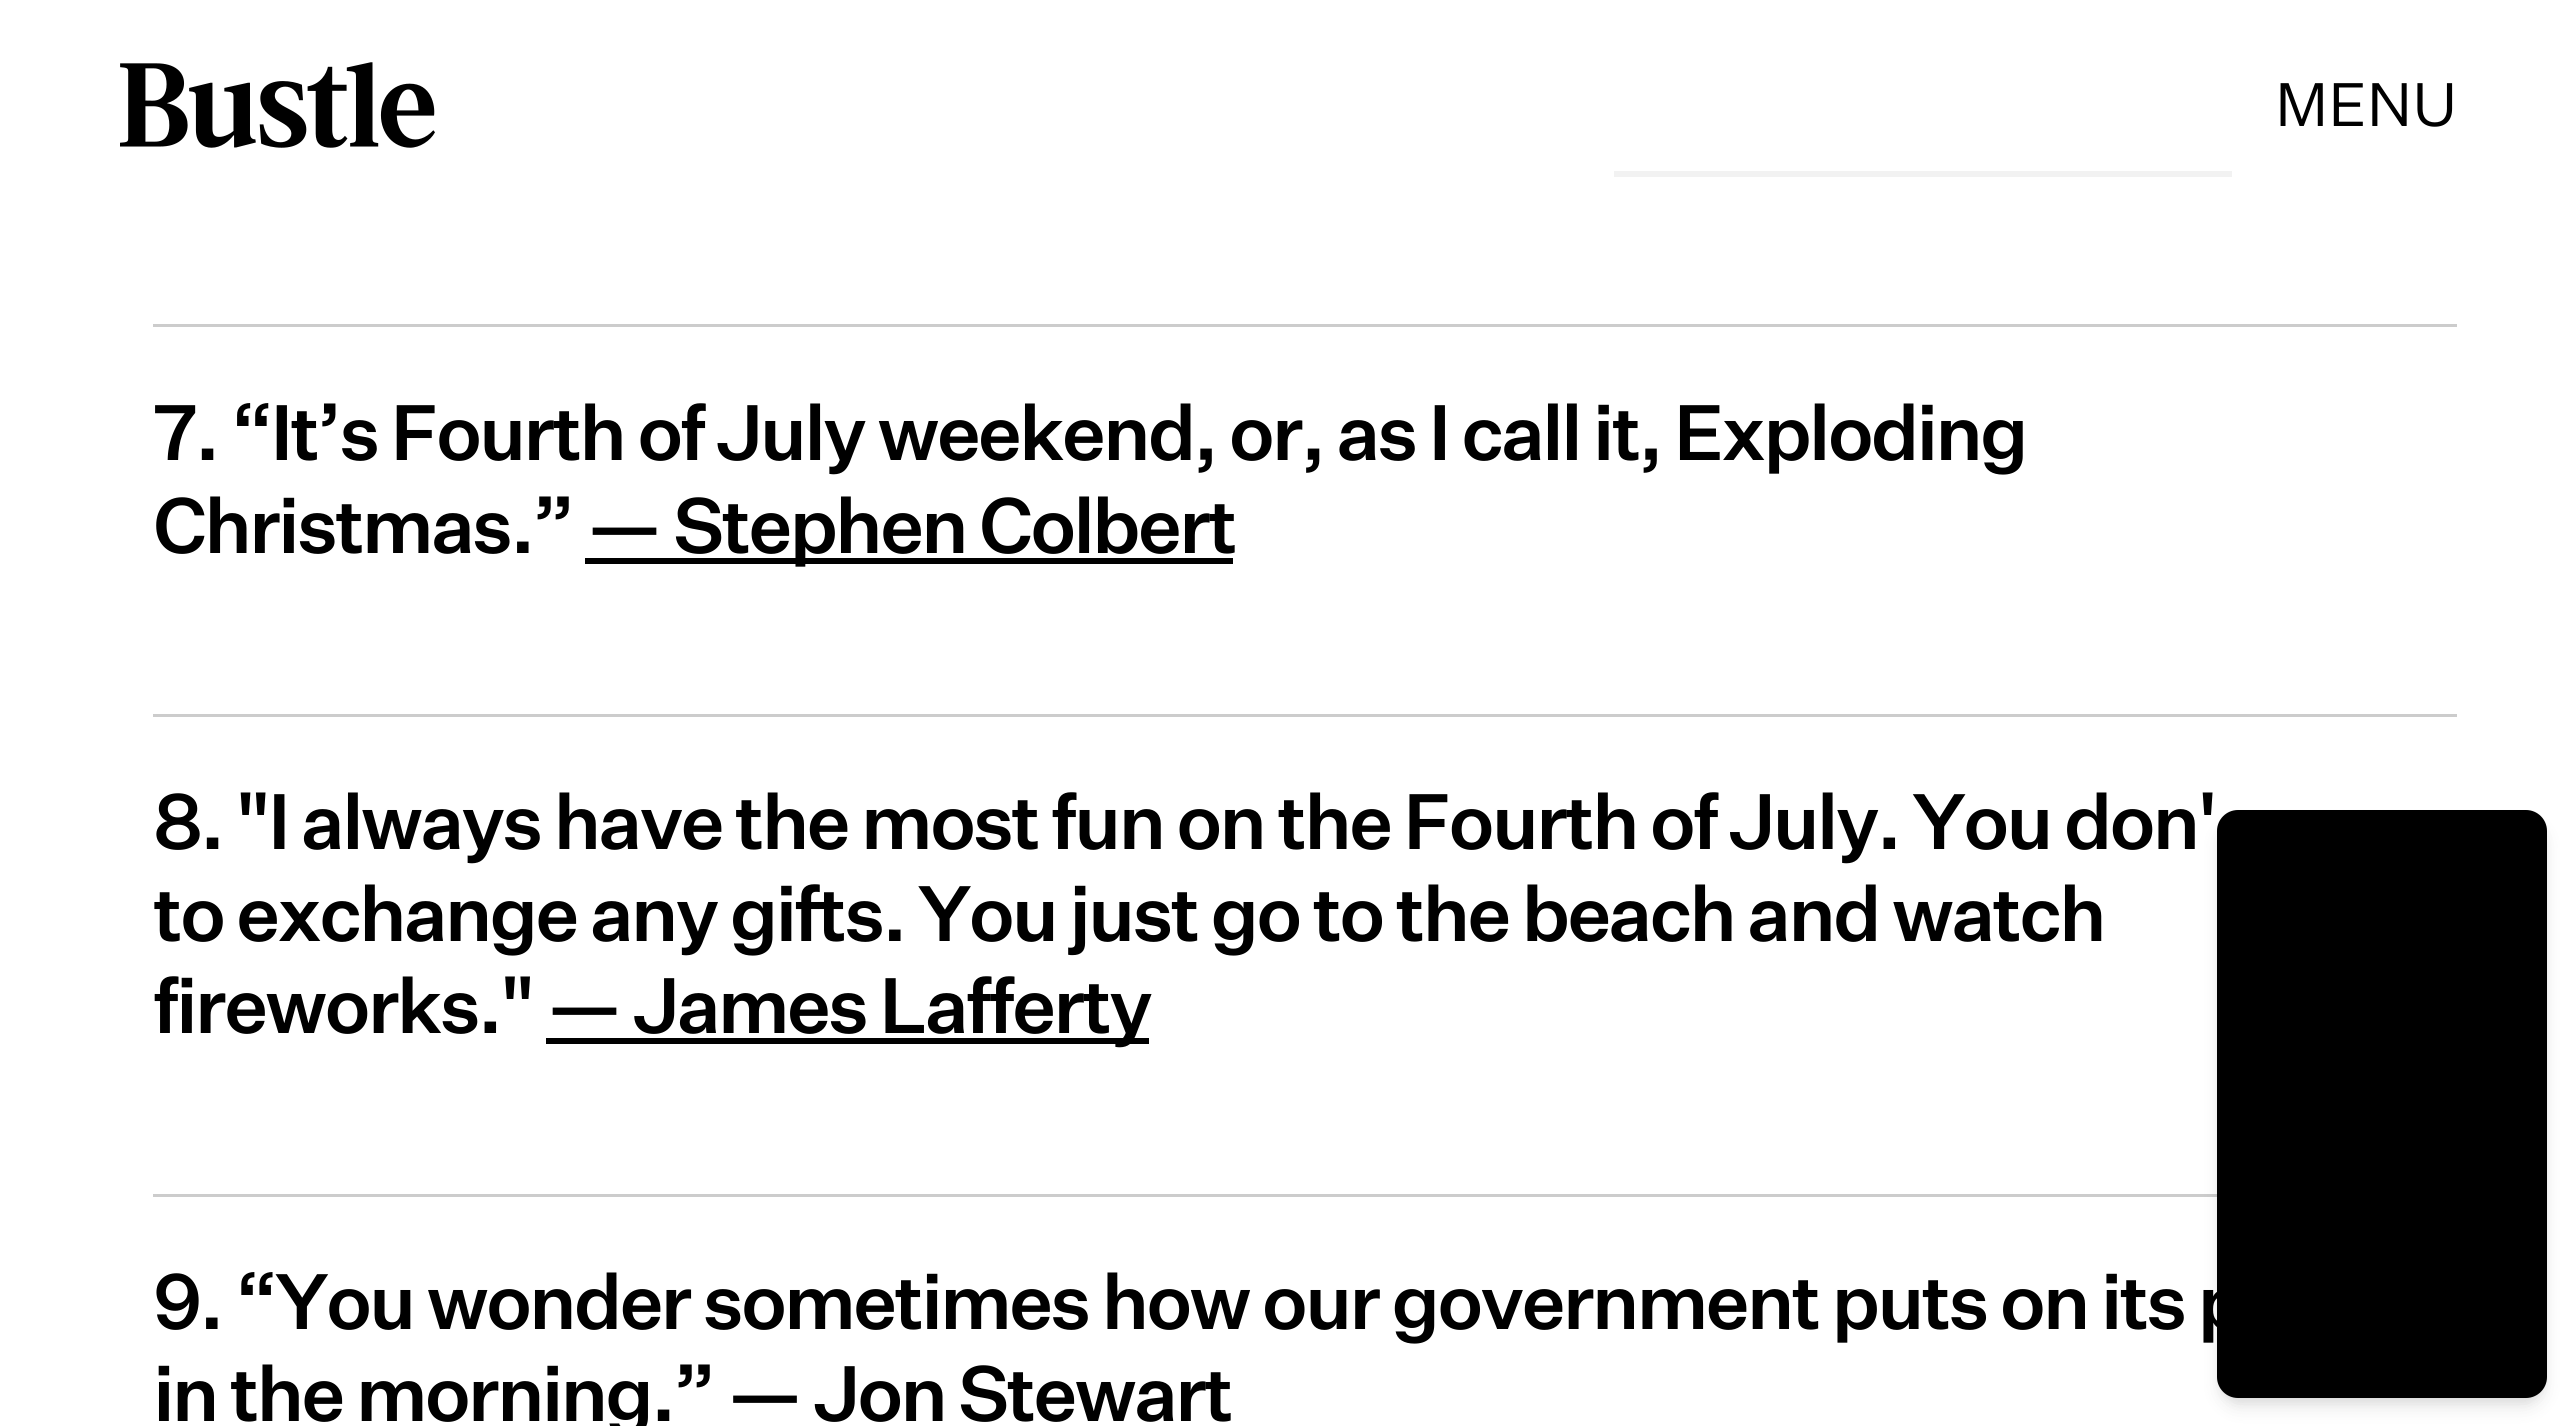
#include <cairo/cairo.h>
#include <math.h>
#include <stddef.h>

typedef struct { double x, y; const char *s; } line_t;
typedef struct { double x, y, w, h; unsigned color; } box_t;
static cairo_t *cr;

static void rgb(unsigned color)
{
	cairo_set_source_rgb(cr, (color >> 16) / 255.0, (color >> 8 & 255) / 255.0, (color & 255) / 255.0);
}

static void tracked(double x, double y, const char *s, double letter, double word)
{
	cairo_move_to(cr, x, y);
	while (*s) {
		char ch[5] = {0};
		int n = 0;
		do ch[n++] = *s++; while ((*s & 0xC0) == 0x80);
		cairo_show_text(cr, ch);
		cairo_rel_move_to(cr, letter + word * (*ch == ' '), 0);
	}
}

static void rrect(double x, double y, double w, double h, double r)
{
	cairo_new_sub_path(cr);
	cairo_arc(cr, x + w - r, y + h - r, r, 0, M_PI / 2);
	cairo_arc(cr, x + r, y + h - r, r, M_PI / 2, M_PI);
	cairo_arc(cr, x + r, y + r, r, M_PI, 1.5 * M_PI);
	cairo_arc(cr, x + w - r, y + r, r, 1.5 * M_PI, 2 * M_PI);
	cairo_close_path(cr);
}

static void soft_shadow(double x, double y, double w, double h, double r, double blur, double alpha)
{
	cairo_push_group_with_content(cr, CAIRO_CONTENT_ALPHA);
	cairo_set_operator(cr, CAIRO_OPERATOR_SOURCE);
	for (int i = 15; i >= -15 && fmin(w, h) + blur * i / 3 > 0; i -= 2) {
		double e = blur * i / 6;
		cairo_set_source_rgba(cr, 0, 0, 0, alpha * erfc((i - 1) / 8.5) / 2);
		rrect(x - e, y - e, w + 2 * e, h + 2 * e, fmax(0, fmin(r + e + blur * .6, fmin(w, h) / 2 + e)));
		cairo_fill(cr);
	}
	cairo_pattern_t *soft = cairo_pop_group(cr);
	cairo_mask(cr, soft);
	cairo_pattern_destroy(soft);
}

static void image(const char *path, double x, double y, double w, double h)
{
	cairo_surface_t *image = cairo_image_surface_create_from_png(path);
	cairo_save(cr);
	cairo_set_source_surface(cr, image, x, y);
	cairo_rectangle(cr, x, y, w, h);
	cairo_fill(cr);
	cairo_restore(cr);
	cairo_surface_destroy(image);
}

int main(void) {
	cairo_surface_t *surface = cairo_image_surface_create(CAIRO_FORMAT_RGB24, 2575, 1426);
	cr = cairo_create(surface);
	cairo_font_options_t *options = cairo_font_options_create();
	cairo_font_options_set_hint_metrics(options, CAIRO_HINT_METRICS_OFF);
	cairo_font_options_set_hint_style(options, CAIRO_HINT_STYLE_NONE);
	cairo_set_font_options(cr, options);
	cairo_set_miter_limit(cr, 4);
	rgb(0xffffff);
	cairo_paint(cr);
	image("img/1.png", 120, 62, 315, 86);
	{
		static const box_t items[] = {
			{1614, 171, 618, 6, 0xf2f2f2},
			{153, 324, 2304, 3, 0xcccccc},
			{585, 558, 648, 6, 0x000000},
			{153, 714, 2304, 3, 0xcccccc},
			{546, 1038, 603, 6, 0x000000},
			{153, 1194, 2064, 3, 0xcccccc},
		};
		for (size_t i = 0; i < sizeof items / sizeof *items; i++) {
			rgb(items[i].color);
			cairo_rectangle(cr, items[i].x, items[i].y, items[i].w, items[i].h);
			cairo_fill(cr);
		}
	}
	rgb(0x000000);
	soft_shadow(2223, 822, 318, 576, 15, 6, 0.1);
	soft_shadow(2220, 825, 324, 582, 18, 9, 0.1);
	rgb(0x000000);
	rrect(2217, 810, 330, 588, 21);
	cairo_fill(cr);
	cairo_select_font_face(cr, "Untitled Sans", CAIRO_FONT_SLANT_NORMAL, CAIRO_FONT_WEIGHT_NORMAL);
	cairo_set_font_size(cr, 60);
	cairo_move_to(cr, 2275, 126);
	cairo_show_text(cr, "MENU");
	cairo_select_font_face(cr, "Untitled Sans Medium", CAIRO_FONT_SLANT_NORMAL, CAIRO_FONT_WEIGHT_NORMAL);
	cairo_set_font_size(cr, 76.8);
	{
		static const line_t items[] = {
			{153, 460, "7. “It’s Fourth of July weekend, or, as I call it, Exploding"},
			{153, 553, "Christmas.”"},
			{586, 553, "— Stephen Colbert"},
			{153, 849, "8. \"I always have the most fun on the Fourth of July. You don'"},
			{153, 941, "to exchange any gifts. You just go to the beach and watch"},
			{153, 1033, "fireworks.\""},
			{546, 1033, "— James Lafferty"},
			{153, 1329, "9. “You wonder sometimes how our government puts on its p"},
			{153, 1421, "in the morning.” — Jon Stewart"},
		};
		for (size_t i = 0; i < sizeof items / sizeof *items; i++) {
			tracked(items[i].x, items[i].y, items[i].s, -3, 0);
		}
	}
	cairo_surface_write_to_png(surface, "page.png");
	cairo_font_options_destroy(options);
	cairo_destroy(cr);
	cairo_surface_destroy(surface);
	return 0;
}
